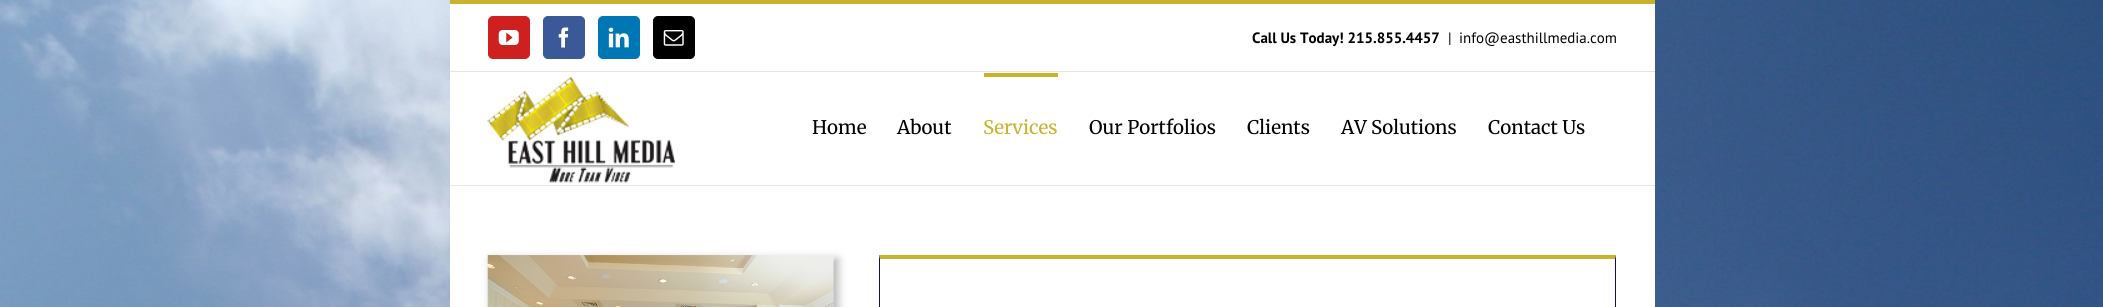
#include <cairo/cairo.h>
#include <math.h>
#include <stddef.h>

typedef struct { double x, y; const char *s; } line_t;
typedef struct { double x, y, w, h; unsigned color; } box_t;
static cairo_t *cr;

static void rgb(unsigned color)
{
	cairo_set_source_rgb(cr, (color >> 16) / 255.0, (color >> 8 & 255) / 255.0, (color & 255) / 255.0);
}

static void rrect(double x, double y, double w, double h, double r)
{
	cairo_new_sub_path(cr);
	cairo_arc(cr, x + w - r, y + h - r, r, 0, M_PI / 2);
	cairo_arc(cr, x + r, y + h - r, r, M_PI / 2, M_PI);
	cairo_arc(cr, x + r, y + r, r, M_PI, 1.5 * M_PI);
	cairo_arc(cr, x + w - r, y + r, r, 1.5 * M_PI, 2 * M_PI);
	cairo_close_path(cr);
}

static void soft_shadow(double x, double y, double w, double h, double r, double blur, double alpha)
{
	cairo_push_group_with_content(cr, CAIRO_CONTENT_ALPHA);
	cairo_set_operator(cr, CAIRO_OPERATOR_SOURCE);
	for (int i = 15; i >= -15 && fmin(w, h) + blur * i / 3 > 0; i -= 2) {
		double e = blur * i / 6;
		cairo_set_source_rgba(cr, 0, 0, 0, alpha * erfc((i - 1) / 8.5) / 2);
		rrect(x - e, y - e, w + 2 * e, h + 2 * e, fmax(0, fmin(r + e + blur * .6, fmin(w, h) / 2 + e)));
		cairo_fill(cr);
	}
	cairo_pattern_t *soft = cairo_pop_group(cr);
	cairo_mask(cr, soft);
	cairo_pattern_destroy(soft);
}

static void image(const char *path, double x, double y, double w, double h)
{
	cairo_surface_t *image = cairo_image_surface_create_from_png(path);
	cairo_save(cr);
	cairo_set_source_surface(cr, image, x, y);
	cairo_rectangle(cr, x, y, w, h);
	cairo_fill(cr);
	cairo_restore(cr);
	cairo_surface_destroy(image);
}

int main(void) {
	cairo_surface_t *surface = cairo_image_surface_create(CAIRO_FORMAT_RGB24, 2103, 307);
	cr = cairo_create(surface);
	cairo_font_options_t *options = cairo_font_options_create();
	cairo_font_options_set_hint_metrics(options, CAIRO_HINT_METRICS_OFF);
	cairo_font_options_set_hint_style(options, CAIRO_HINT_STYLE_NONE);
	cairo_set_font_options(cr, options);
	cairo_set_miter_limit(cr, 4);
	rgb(0xffffff);
	cairo_paint(cr);
	image("img/1.png", 0, 0, 2103, 307);
	{
		static const box_t items[] = {
			{450, 4, 1205, 181, 0xffffff},
			{450, 0, 1205, 4, 0xc9b22d},
			{450, 71, 1205, 1, 0xe5e5e5},
		};
		for (size_t i = 0; i < sizeof items / sizeof *items; i++) {
			rgb(items[i].color);
			cairo_rectangle(cr, items[i].x, items[i].y, items[i].w, items[i].h);
			cairo_fill(cr);
		}
	}
	rgb(0xcd201f);
	rrect(488.5, 16.5, 41, 42, 4.5);
	cairo_fill_preserve(cr);
	cairo_set_line_width(cr, 1);
	cairo_stroke(cr);
	image("img/2.png", 498, 30, 21, 15);
	rgb(0x3b5998);
	rrect(543.5, 16.5, 41, 42, 4.5);
	cairo_fill_preserve(cr);
	cairo_stroke(cr);
	image("img/3.png", 558, 27, 11, 21);
	rgb(0x0077b5);
	rrect(598.5, 16.5, 41, 42, 4.5);
	cairo_fill_preserve(cr);
	cairo_stroke(cr);
	image("img/4.png", 608, 27, 21, 21);
	rgb(0x000000);
	rrect(653.5, 16.5, 41, 42, 4.5);
	cairo_fill_preserve(cr);
	cairo_stroke(cr);
	image("img/5.png", 663, 30, 21, 16);
	rgb(0xe5e5e5);
	cairo_rectangle(cr, 450, 185, 1205, 1);
	cairo_fill(cr);
	image("img/6.png", 487, 76, 188, 107);
	rgb(0xc9b22d);
	cairo_rectangle(cr, 984, 73, 74, 4);
	cairo_fill(cr);
	rgb(0xffffff);
	cairo_rectangle(cr, 450, 186, 1205, 121);
	cairo_fill(cr);
	rgb(0x000000);
	soft_shadow(491, 259, 347, 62, 0, 4.5, 0.3);
	image("img/7.png", 487, 255, 347, 52);
	rgb(0xc9b22d);
	cairo_new_path(cr);
	cairo_move_to(cr, 879, 255);
	cairo_line_to(cr, 1616, 255);
	cairo_line_to(cr, 1615, 259);
	cairo_line_to(cr, 880, 259);
	cairo_close_path(cr);
	cairo_fill(cr);
	rgb(0x1b0b5e);
	cairo_new_path(cr);
	cairo_move_to(cr, 1616, 255);
	cairo_line_to(cr, 1616, 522);
	cairo_line_to(cr, 1615, 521);
	cairo_line_to(cr, 1615, 259);
	cairo_close_path(cr);
	cairo_fill(cr);
	cairo_new_path(cr);
	cairo_move_to(cr, 879, 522);
	cairo_line_to(cr, 879, 255);
	cairo_line_to(cr, 880, 259);
	cairo_line_to(cr, 880, 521);
	cairo_close_path(cr);
	cairo_fill(cr);
	cairo_select_font_face(cr, "PT Sans", CAIRO_FONT_SLANT_NORMAL, CAIRO_FONT_WEIGHT_BOLD);
	cairo_set_font_size(cr, 15);
	rgb(0x000000);
	cairo_move_to(cr, 1252, 43);
	cairo_show_text(cr, "Call Us Today! 215.855.4457");
	cairo_select_font_face(cr, "PT Sans", CAIRO_FONT_SLANT_NORMAL, CAIRO_FONT_WEIGHT_NORMAL);
	cairo_move_to(cr, 1448, 43);
	cairo_show_text(cr, "|");
	cairo_move_to(cr, 1459, 43);
	cairo_show_text(cr, "info@easthillmedia.com");
	cairo_select_font_face(cr, "Merriweather Light", CAIRO_FONT_SLANT_NORMAL, CAIRO_FONT_WEIGHT_NORMAL);
	cairo_set_font_size(cr, 18.75);
	cairo_move_to(cr, 812, 134);
	cairo_show_text(cr, "Home");
	cairo_move_to(cr, 897, 134);
	cairo_show_text(cr, "About");
	rgb(0xc9b22d);
	cairo_move_to(cr, 983, 134);
	cairo_show_text(cr, "Services");
	rgb(0x000000);
	{
		static const line_t items[] = {
			{1089, 134, "Our Portfolios"},
			{1247, 134, "Clients"},
			{1341, 134, "AV Solutions"},
			{1488, 134, "Contact Us"},
		};
		for (size_t i = 0; i < sizeof items / sizeof *items; i++) {
			cairo_move_to(cr, items[i].x, items[i].y);
			cairo_show_text(cr, items[i].s);
		}
	}
	cairo_surface_write_to_png(surface, "page.png");
	cairo_font_options_destroy(options);
	cairo_destroy(cr);
	cairo_surface_destroy(surface);
	return 0;
}
